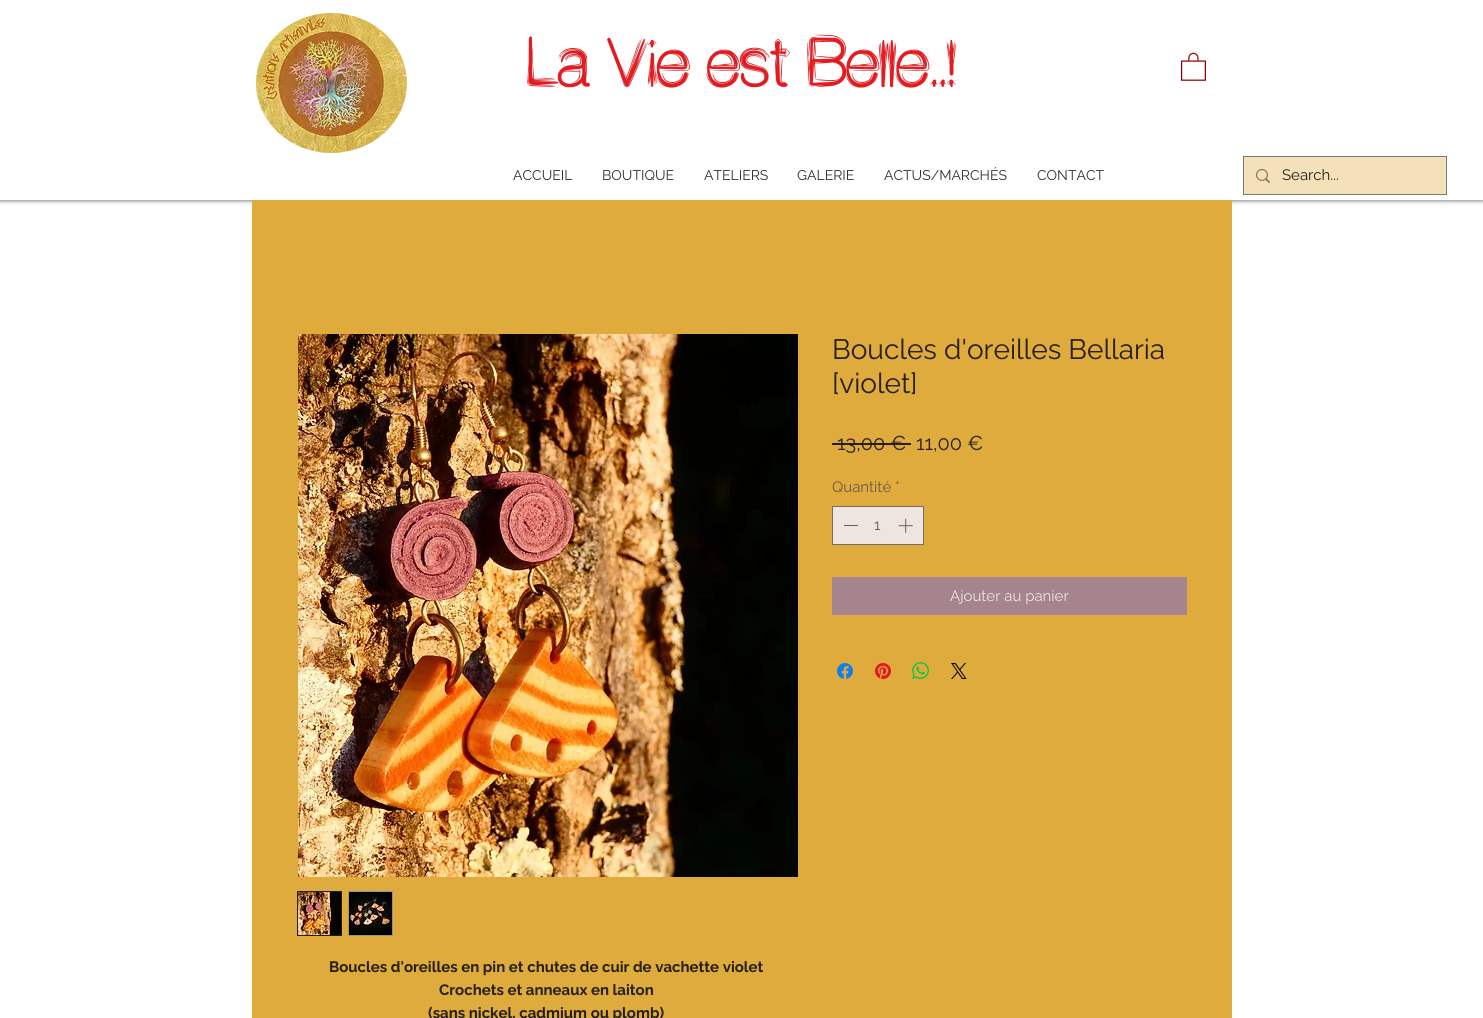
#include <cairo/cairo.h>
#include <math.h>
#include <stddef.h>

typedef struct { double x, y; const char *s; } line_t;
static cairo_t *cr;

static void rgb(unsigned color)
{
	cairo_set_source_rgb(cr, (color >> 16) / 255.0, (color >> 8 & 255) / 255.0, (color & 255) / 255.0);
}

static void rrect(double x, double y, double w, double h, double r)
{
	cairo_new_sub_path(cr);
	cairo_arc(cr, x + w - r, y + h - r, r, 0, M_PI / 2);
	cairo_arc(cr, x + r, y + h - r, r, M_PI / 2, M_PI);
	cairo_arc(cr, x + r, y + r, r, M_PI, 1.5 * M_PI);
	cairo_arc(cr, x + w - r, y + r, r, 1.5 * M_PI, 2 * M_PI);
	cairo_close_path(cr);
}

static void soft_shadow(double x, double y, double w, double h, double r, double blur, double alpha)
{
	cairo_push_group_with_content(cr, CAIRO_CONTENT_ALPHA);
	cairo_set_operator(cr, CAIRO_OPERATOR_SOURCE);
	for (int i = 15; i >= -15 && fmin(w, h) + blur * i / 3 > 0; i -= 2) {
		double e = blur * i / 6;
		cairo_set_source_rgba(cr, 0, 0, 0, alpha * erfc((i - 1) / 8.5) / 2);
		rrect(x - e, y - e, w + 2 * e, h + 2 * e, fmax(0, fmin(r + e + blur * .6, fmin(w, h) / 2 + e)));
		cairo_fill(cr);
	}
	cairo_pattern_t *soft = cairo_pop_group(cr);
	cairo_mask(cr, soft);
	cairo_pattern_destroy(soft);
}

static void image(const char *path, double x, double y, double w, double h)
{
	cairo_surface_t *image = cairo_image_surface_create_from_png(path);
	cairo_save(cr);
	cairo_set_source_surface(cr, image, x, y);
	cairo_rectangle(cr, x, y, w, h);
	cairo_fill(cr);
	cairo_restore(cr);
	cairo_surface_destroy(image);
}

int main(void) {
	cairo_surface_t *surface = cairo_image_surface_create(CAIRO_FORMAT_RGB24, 1483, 1018);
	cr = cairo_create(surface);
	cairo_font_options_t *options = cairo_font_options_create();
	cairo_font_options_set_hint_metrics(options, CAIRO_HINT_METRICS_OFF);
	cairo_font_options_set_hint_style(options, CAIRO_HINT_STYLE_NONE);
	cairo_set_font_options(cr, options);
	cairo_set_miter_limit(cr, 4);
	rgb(0xffffff);
	cairo_paint(cr);
	cairo_save(cr);
	cairo_rectangle(cr, 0, 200, 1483, 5);
	cairo_clip(cr);
	rgb(0x000000);
	soft_shadow(0, 0, 1483, 200, 0, 2.5, 0.7);
	cairo_restore(cr);
	image("img/1.png", 256, 13, 151, 140);
	image("img/2.png", 1181, 52, 25, 29);
	cairo_rectangle(cr, 1243.5, 156.5, 203, 38);
	rgb(0x7c7876);
	cairo_set_line_width(cr, 1);
	cairo_stroke(cr);
	rgb(0xf4e1b9);
	cairo_rectangle(cr, 1244, 157, 202, 37);
	cairo_fill(cr);
	image("img/3.png", 1256, 169, 14, 14);
	rgb(0xdeab3c);
	cairo_rectangle(cr, 252, 200, 980, 818);
	cairo_fill(cr);
	rgb(0x251e1b);
	cairo_rectangle(cr, 832, 443, 79, 2);
	cairo_fill(cr);
	rgb(0xeee4e0);
	cairo_rectangle(cr, 832.5, 506.5, 91, 38);
	cairo_fill_preserve(cr);
	rgb(0x756d6a);
	cairo_stroke(cr);
	rgb(0x6e5a51);
	cairo_rectangle(cr, 844, 525, 14, 1);
	cairo_fill(cr);
	image("img/4.png", 898, 518, 15, 15);
	rgb(0xa5848d);
	cairo_rectangle(cr, 832, 577, 355, 38);
	cairo_fill(cr);
	image("img/5.png", 837, 663, 16, 16);
	image("img/6.png", 875, 663, 16, 16);
	image("img/7.png", 912, 662, 17, 17);
	image("img/8.png", 951, 663, 16, 16);
	image("img/9.png", 298, 334, 500, 543);
	cairo_rectangle(cr, 297.5, 891.5, 44, 44);
	rgb(0x251e1b);
	cairo_stroke(cr);
	image("img/10.png", 298, 892, 43, 43);
	rgb(0x9e908a);
	cairo_rectangle(cr, 348, 891, 45, 45);
	cairo_fill(cr);
	image("img/11.png", 349, 892, 43, 43);
	cairo_select_font_face(cr, "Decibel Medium", CAIRO_FONT_SLANT_NORMAL, CAIRO_FONT_WEIGHT_NORMAL);
	cairo_set_font_size(cr, 68);
	rgb(0xe21c21);
	{
		static const line_t items[] = {
			{527, 87, "La"},
			{607, 87, "Vie"},
			{707, 87, "est"},
			{807, 87, "Belle..!"},
		};
		for (size_t i = 0; i < sizeof items / sizeof *items; i++) {
			cairo_move_to(cr, items[i].x, items[i].y);
			cairo_show_text(cr, items[i].s);
		}
	}
	cairo_select_font_face(cr, "Raleway", CAIRO_FONT_SLANT_NORMAL, CAIRO_FONT_WEIGHT_NORMAL);
	cairo_set_font_size(cr, 14);
	rgb(0x332c2e);
	{
		static const line_t items[] = {
			{513, 180, "ACCUEIL"},
			{602, 180, "BOUTIQUE"},
			{704, 180, "ATELIERS"},
			{797, 180, "GALERIE"},
			{884, 180, "ACTUS/MARCHÉS"},
			{1037, 180, "CONTACT"},
		};
		for (size_t i = 0; i < sizeof items / sizeof *items; i++) {
			cairo_move_to(cr, items[i].x, items[i].y);
			cairo_show_text(cr, items[i].s);
		}
	}
	cairo_set_font_size(cr, 15);
	rgb(0x251e1b);
	cairo_move_to(cr, 1282, 180);
	cairo_show_text(cr, "Search...");
	cairo_set_font_size(cr, 28);
	cairo_move_to(cr, 832, 359);
	cairo_show_text(cr, "Boucles d'oreilles Bellaria");
	cairo_move_to(cr, 832, 393);
	cairo_show_text(cr, "[violet]");
	cairo_set_font_size(cr, 20);
	cairo_move_to(cr, 837, 450);
	cairo_show_text(cr, "13,00 €");
	cairo_move_to(cr, 916, 450);
	cairo_show_text(cr, "11,00 €");
	cairo_set_font_size(cr, 15);
	rgb(0x6e5a51);
	cairo_move_to(cr, 832, 492);
	cairo_show_text(cr, "Quantité *");
	cairo_move_to(cr, 874, 530);
	cairo_show_text(cr, "1");
	rgb(0xeee4e0);
	cairo_move_to(cr, 950, 601);
	cairo_show_text(cr, "Ajouter au panier");
	cairo_select_font_face(cr, "Raleway", CAIRO_FONT_SLANT_NORMAL, CAIRO_FONT_WEIGHT_BOLD);
	rgb(0x251e1b);
	{
		static const line_t items[] = {
			{329, 972, "Boucles d'oreilles en pin et chutes de cuir de vachette violet"},
			{439, 995, "Crochets et anneaux en laiton"},
			{428, 1018, "(sans nickel, cadmium ou plomb)"},
		};
		for (size_t i = 0; i < sizeof items / sizeof *items; i++) {
			cairo_move_to(cr, items[i].x, items[i].y);
			cairo_show_text(cr, items[i].s);
		}
	}
	cairo_surface_write_to_png(surface, "page.png");
	cairo_font_options_destroy(options);
	cairo_destroy(cr);
	cairo_surface_destroy(surface);
	return 0;
}
